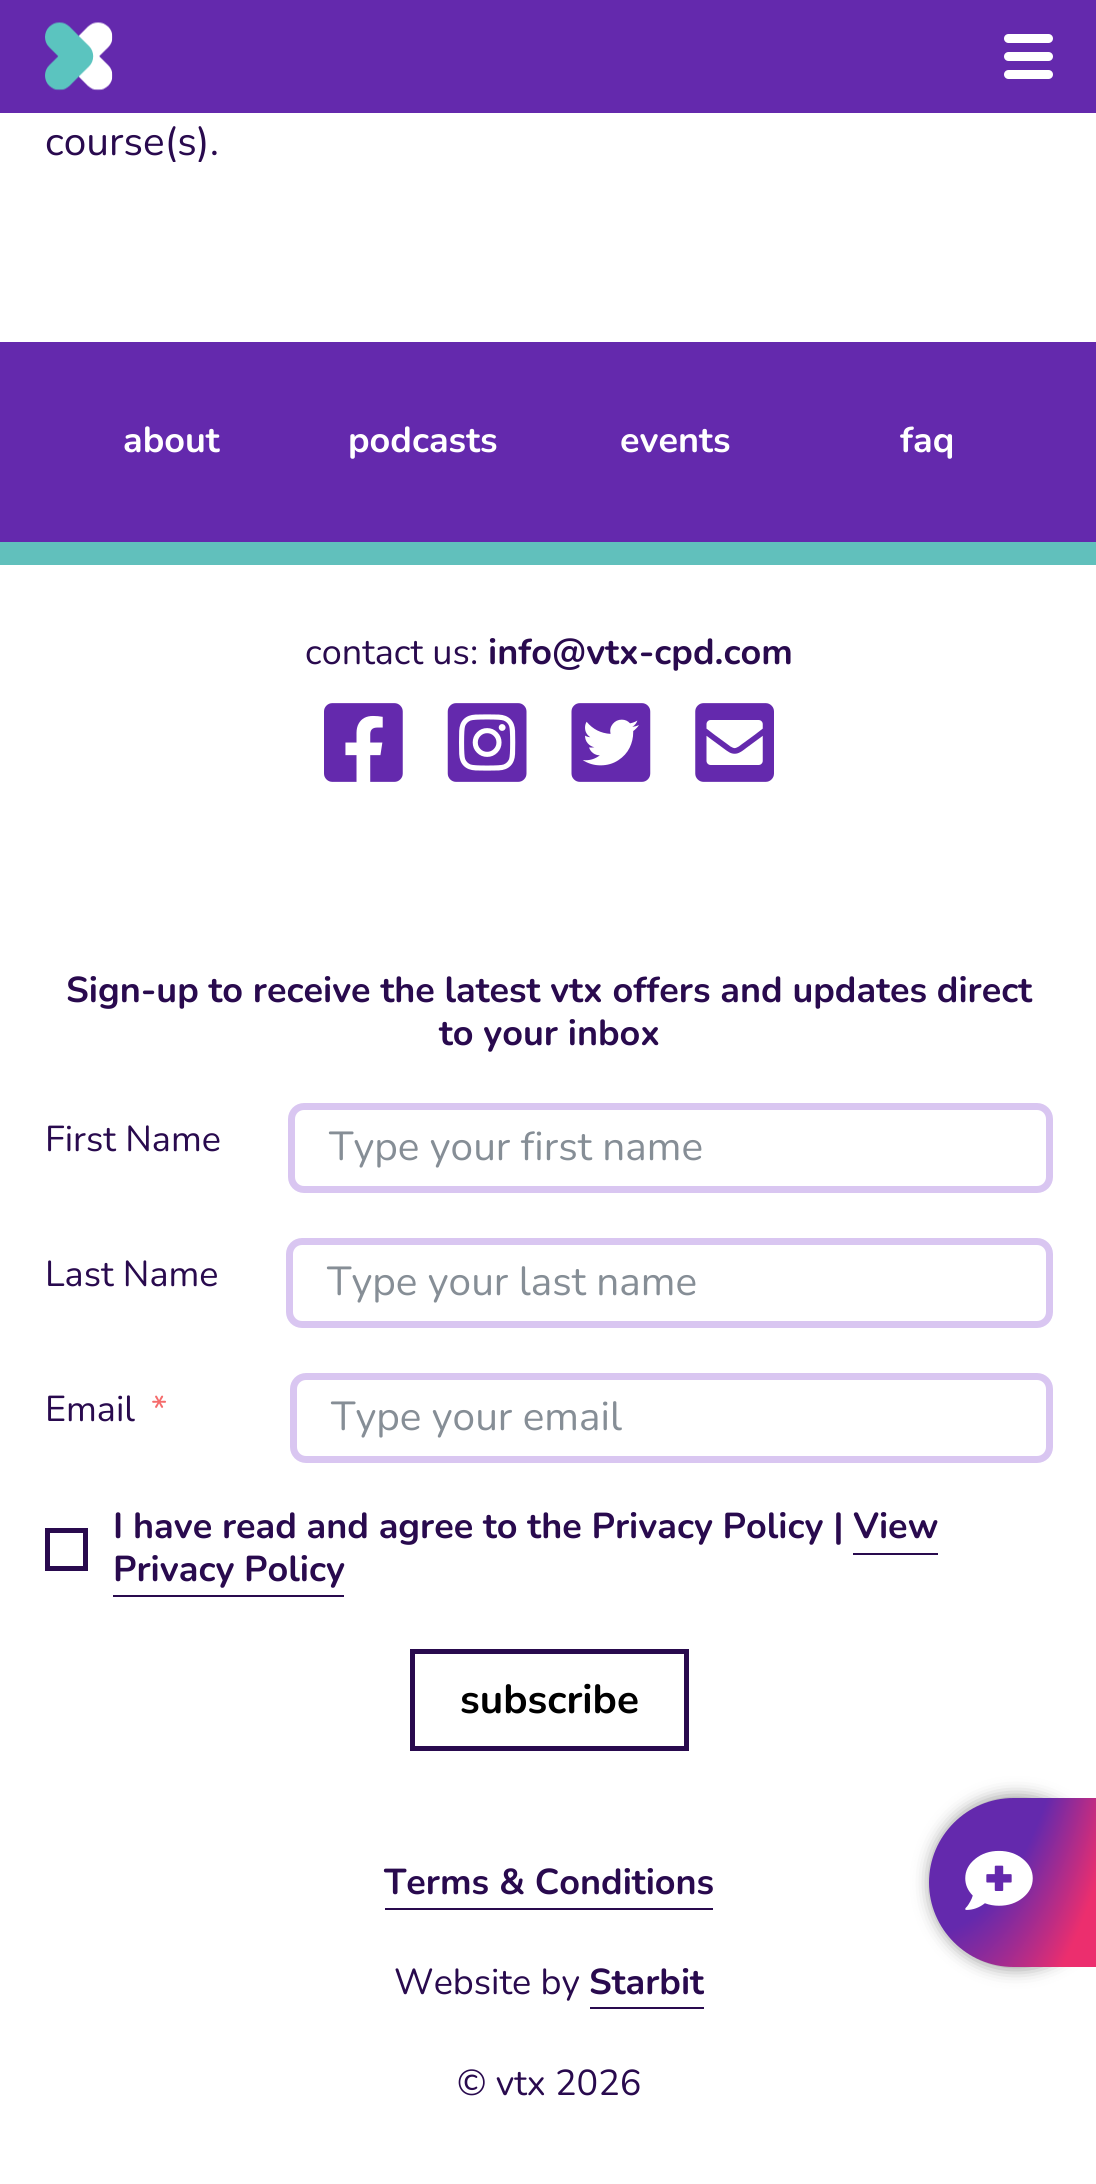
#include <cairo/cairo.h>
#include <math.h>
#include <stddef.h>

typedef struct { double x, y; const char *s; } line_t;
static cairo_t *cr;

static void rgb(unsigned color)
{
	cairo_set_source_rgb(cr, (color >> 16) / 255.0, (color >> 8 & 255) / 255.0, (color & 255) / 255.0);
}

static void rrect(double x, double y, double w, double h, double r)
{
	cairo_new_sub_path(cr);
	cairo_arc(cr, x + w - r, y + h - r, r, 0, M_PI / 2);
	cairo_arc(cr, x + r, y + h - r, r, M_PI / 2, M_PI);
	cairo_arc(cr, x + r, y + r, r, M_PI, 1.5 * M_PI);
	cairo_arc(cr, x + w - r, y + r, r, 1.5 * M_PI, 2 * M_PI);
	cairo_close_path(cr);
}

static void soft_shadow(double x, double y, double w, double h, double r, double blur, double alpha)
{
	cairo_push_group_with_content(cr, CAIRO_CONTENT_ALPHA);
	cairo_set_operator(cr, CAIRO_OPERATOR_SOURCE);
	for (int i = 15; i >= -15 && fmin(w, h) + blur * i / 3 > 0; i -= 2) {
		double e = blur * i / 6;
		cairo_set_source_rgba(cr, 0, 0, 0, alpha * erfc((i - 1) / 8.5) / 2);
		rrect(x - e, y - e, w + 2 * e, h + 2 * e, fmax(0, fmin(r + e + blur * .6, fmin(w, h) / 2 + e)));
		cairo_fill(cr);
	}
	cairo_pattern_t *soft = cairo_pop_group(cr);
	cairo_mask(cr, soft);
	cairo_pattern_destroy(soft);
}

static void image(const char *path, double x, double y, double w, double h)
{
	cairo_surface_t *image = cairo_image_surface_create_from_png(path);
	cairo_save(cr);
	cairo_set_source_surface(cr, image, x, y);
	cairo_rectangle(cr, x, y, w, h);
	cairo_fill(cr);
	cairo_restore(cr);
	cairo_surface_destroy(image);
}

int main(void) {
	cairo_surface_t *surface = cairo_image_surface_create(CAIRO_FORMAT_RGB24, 1096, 2184);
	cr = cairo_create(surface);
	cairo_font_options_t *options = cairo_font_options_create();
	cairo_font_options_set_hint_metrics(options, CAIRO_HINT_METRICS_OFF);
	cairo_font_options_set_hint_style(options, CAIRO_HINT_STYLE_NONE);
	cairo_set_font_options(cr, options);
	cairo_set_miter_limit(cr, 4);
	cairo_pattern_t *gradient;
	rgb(0xffffff);
	cairo_paint(cr);
	rgb(0x6429ad);
	cairo_rectangle(cr, 0, 0, 1096, 113);
	cairo_fill(cr);
	image("img/1.png", 45, 22, 68, 69);
	rgb(0xffffff);
	rrect(1004, 52, 49, 9, 4.5);
	cairo_fill(cr);
	rrect(1004, 34, 49, 9, 4.5);
	cairo_fill(cr);
	rrect(1004, 70, 49, 9, 4.5);
	cairo_fill(cr);
	rgb(0x000000);
	soft_shadow(932, 1798, 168, 169, 84, 9, 0.5);
	gradient = cairo_pattern_create_radial(0, 0, 0, 0, 0, 1);
	cairo_pattern_set_matrix(gradient, &(cairo_matrix_t){1.0 / 239, 0, 0, 1.0 / 597, -1.0 * 929 / 239, -1.0 * 1545 / 597});
	cairo_pattern_add_color_stop_rgba(gradient, 0, 0.392, 0.161, 0.678, 1);
	cairo_pattern_add_color_stop_rgba(gradient, 0.65, 0.392, 0.161, 0.678, 1);
	cairo_pattern_add_color_stop_rgba(gradient, 0.9, 0.925, 0.18, 0.431, 1);
	cairo_set_source(cr, gradient);
	cairo_pattern_destroy(gradient);
	cairo_new_path(cr);
	cairo_move_to(cr, 1013.5, 1798);
	cairo_line_to(cr, 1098, 1798);
	cairo_line_to(cr, 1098, 1967);
	cairo_line_to(cr, 1013.5, 1967);
	cairo_curve_to(cr, 967, 1967, 929, 1929, 929, 1882.5);
	cairo_curve_to(cr, 929, 1836, 967, 1798, 1013.5, 1798);
	cairo_close_path(cr);
	cairo_fill(cr);
	image("img/2.png", 965, 1850, 68, 60);
	rgb(0x6429ad);
	cairo_rectangle(cr, 0, 342, 1096, 200);
	cairo_fill(cr);
	rgb(0x61c0bc);
	cairo_rectangle(cr, 0, 542, 1096, 23);
	cairo_fill(cr);
	image("img/3.png", 324, 703, 79, 79);
	image("img/4.png", 447, 703, 80, 79);
	image("img/5.png", 571, 703, 80, 79);
	image("img/6.png", 695, 703, 79, 79);
	rrect(291.5, 1106.5, 758, 83, 12.5);
	rgb(0xd9c6f1);
	cairo_set_line_width(cr, 7);
	cairo_stroke(cr);
	rrect(289.5, 1241.5, 760, 83, 12.5);
	cairo_stroke(cr);
	rrect(293.5, 1376.5, 756, 83, 12.5);
	cairo_stroke(cr);
	cairo_rectangle(cr, 47.5, 1530.5, 38, 38);
	rgb(0x290a4e);
	cairo_set_line_width(cr, 5);
	cairo_stroke(cr);
	cairo_rectangle(cr, 853, 1553, 85, 2);
	cairo_fill(cr);
	cairo_rectangle(cr, 113, 1595, 231, 2);
	cairo_fill(cr);
	cairo_rectangle(cr, 412.5, 1651.5, 274, 97);
	cairo_stroke(cr);
	cairo_rectangle(cr, 385, 1908, 328, 2);
	cairo_fill(cr);
	cairo_rectangle(cr, 590, 2007, 114, 2);
	cairo_fill(cr);
	cairo_save(cr);
	cairo_rectangle(cr, 45, 81, 1008, 81);
	cairo_clip(cr);
	cairo_select_font_face(cr, "Nunito", CAIRO_FONT_SLANT_NORMAL, CAIRO_FONT_WEIGHT_NORMAL);
	cairo_set_font_size(cr, 40.5);
	cairo_move_to(cr, 45, 155);
	cairo_show_text(cr, "course(s).");
	cairo_restore(cr);
	cairo_select_font_face(cr, "Nunito", CAIRO_FONT_SLANT_NORMAL, CAIRO_FONT_WEIGHT_BOLD);
	cairo_set_font_size(cr, 36);
	rgb(0xffffff);
	{
		static const line_t items[] = {
			{123, 452, "about"},
			{348, 452, "podcasts"},
			{620, 452, "events"},
			{900, 452, "faq"},
		};
		for (size_t i = 0; i < sizeof items / sizeof *items; i++) {
			cairo_move_to(cr, items[i].x, items[i].y);
			cairo_show_text(cr, items[i].s);
		}
	}
	cairo_select_font_face(cr, "Nunito", CAIRO_FONT_SLANT_NORMAL, CAIRO_FONT_WEIGHT_NORMAL);
	rgb(0x290a4e);
	cairo_move_to(cr, 305, 664);
	cairo_show_text(cr, "contact us:");
	cairo_select_font_face(cr, "Nunito", CAIRO_FONT_SLANT_NORMAL, CAIRO_FONT_WEIGHT_BOLD);
	cairo_move_to(cr, 488, 664);
	cairo_show_text(cr, "info@vtx-cpd.com");
	cairo_select_font_face(cr, "Nunito", CAIRO_FONT_SLANT_NORMAL, CAIRO_FONT_WEIGHT_NORMAL);
	cairo_move_to(cr, 457, 2095);
	cairo_show_text(cr, "© vtx 2026");
	cairo_select_font_face(cr, "Nunito", CAIRO_FONT_SLANT_NORMAL, CAIRO_FONT_WEIGHT_BOLD);
	cairo_move_to(cr, 66, 1002);
	cairo_show_text(cr, "Sign-up to receive the latest vtx offers and updates direct");
	cairo_move_to(cr, 439, 1045);
	cairo_show_text(cr, "to your inbox");
	cairo_select_font_face(cr, "Nunito", CAIRO_FONT_SLANT_NORMAL, CAIRO_FONT_WEIGHT_NORMAL);
	cairo_move_to(cr, 45, 1151);
	cairo_show_text(cr, "First Name");
	cairo_set_font_size(cr, 40.5);
	rgb(0x868e96);
	cairo_move_to(cr, 329, 1160);
	cairo_show_text(cr, "Type your first name");
	cairo_set_font_size(cr, 36);
	rgb(0x290a4e);
	cairo_move_to(cr, 45, 1286);
	cairo_show_text(cr, "Last Name");
	cairo_set_font_size(cr, 40.5);
	rgb(0x868e96);
	cairo_move_to(cr, 327, 1295);
	cairo_show_text(cr, "Type your last name");
	cairo_set_font_size(cr, 36);
	rgb(0x290a4e);
	cairo_move_to(cr, 45, 1421);
	cairo_show_text(cr, "Email");
	rgb(0xf56c6c);
	cairo_move_to(cr, 151, 1421);
	cairo_show_text(cr, "*");
	cairo_set_font_size(cr, 40.5);
	rgb(0x868e96);
	cairo_move_to(cr, 331, 1430);
	cairo_show_text(cr, "Type your email");
	cairo_select_font_face(cr, "Nunito", CAIRO_FONT_SLANT_NORMAL, CAIRO_FONT_WEIGHT_BOLD);
	cairo_set_font_size(cr, 36);
	rgb(0x290a4e);
	cairo_move_to(cr, 113, 1538);
	cairo_show_text(cr, "I have read and agree to the Privacy Policy | View");
	cairo_move_to(cr, 113, 1581);
	cairo_show_text(cr, "Privacy Policy");
	cairo_set_font_size(cr, 40.5);
	rgb(0x000000);
	cairo_move_to(cr, 460, 1713);
	cairo_show_text(cr, "subscribe");
	cairo_set_font_size(cr, 36);
	rgb(0x290a4e);
	cairo_move_to(cr, 384, 1894);
	cairo_show_text(cr, "Terms & Conditions");
	cairo_select_font_face(cr, "Nunito", CAIRO_FONT_SLANT_NORMAL, CAIRO_FONT_WEIGHT_NORMAL);
	cairo_move_to(cr, 394, 1994);
	cairo_show_text(cr, "Website by");
	cairo_select_font_face(cr, "Nunito", CAIRO_FONT_SLANT_NORMAL, CAIRO_FONT_WEIGHT_BOLD);
	cairo_move_to(cr, 589, 1994);
	cairo_show_text(cr, "Starbit");
	cairo_surface_write_to_png(surface, "page.png");
	cairo_font_options_destroy(options);
	cairo_destroy(cr);
	cairo_surface_destroy(surface);
	return 0;
}
